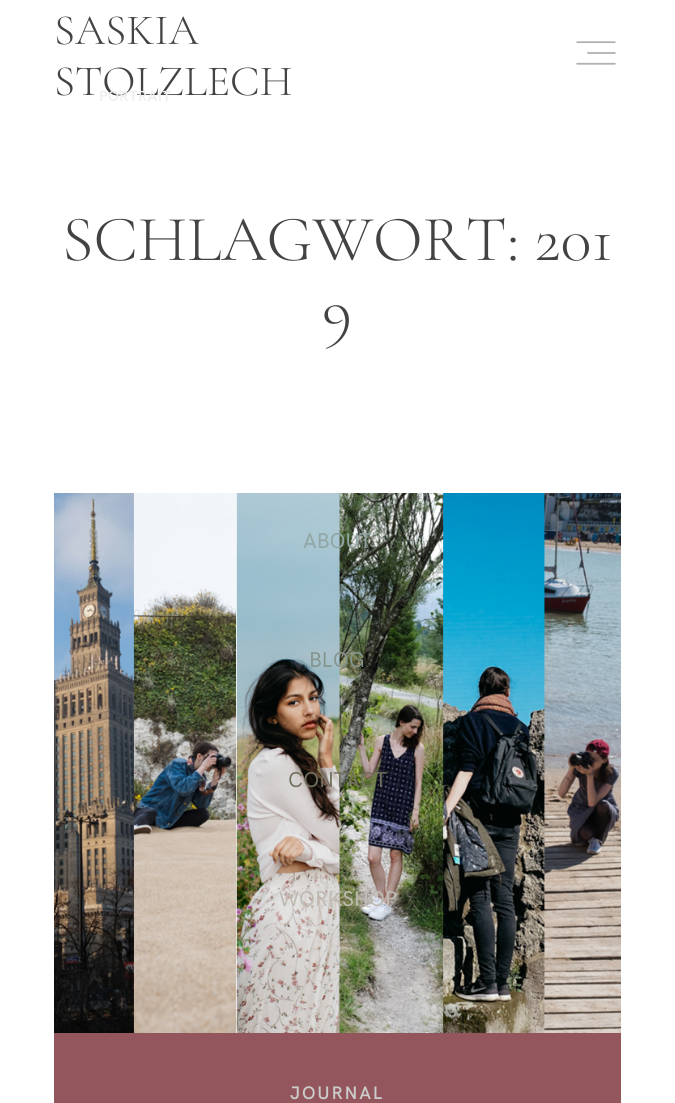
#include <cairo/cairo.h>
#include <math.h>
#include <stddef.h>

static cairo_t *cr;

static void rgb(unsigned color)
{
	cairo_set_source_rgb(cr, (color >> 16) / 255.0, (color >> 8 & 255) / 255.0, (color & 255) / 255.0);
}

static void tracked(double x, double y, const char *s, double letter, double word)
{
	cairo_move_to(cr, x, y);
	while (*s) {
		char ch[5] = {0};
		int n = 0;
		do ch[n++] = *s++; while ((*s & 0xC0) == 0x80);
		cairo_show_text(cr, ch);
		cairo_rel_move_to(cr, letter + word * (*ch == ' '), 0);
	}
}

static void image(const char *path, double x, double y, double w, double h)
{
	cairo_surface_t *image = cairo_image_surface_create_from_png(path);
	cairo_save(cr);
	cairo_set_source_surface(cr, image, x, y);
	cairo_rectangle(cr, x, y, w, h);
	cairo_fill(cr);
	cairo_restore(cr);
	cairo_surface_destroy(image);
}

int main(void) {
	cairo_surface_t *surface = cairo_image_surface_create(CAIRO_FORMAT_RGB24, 675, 1103);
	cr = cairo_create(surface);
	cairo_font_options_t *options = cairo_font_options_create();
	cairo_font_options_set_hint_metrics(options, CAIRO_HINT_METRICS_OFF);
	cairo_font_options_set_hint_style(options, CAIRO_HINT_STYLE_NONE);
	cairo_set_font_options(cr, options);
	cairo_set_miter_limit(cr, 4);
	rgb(0xffffff);
	cairo_paint(cr);
	image("img/1.png", 576, 41, 40, 24);
	image("img/2.png", 54, 493, 567, 540);
	rgb(0x93565c);
	cairo_rectangle(cr, 54, 1033, 567, 70);
	cairo_fill(cr);
	cairo_select_font_face(cr, "Cormorant Garamond Light", CAIRO_FONT_SLANT_NORMAL, CAIRO_FONT_WEIGHT_NORMAL);
	cairo_set_font_size(cr, 43.25);
	rgb(0x434442);
	cairo_move_to(cr, 54, 44);
	cairo_show_text(cr, "SASKIA");
	cairo_move_to(cr, 54, 95);
	cairo_show_text(cr, "STOLZLECH");
	cairo_set_font_size(cr, 64.75);
	cairo_move_to(cr, 62, 260);
	cairo_show_text(cr, "SCHLAGWORT: 201");
	cairo_move_to(cr, 322, 331);
	cairo_show_text(cr, "9");
	cairo_select_font_face(cr, "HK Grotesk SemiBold", CAIRO_FONT_SLANT_NORMAL, CAIRO_FONT_WEIGHT_NORMAL);
	cairo_set_font_size(cr, 18);
	rgb(0xcccccc);
	tracked(290, 1099, "JOURNAL", 1.75, 0);
	cairo_set_font_size(cr, 14.5);
	rgb(0xededed);
	tracked(99, 101, "PORTRAIT", 0.5, 0);
	cairo_select_font_face(cr, "HK Grotesk", CAIRO_FONT_SLANT_NORMAL, CAIRO_FONT_WEIGHT_NORMAL);
	cairo_set_font_size(cr, 21.5);
	rgb(0x90a5a4);
	cairo_move_to(cr, 303, 548);
	cairo_show_text(cr, "ABOUT");
	rgb(0x85958e);
	cairo_move_to(cr, 309, 667);
	cairo_show_text(cr, "BLOG");
	rgb(0x72715f);
	cairo_move_to(cr, 288, 787);
	cairo_show_text(cr, "CONTACT");
	rgb(0xbebab1);
	cairo_move_to(cr, 279, 906);
	cairo_show_text(cr, "WORKSHOP");
	cairo_surface_write_to_png(surface, "page.png");
	cairo_font_options_destroy(options);
	cairo_destroy(cr);
	cairo_surface_destroy(surface);
	return 0;
}
